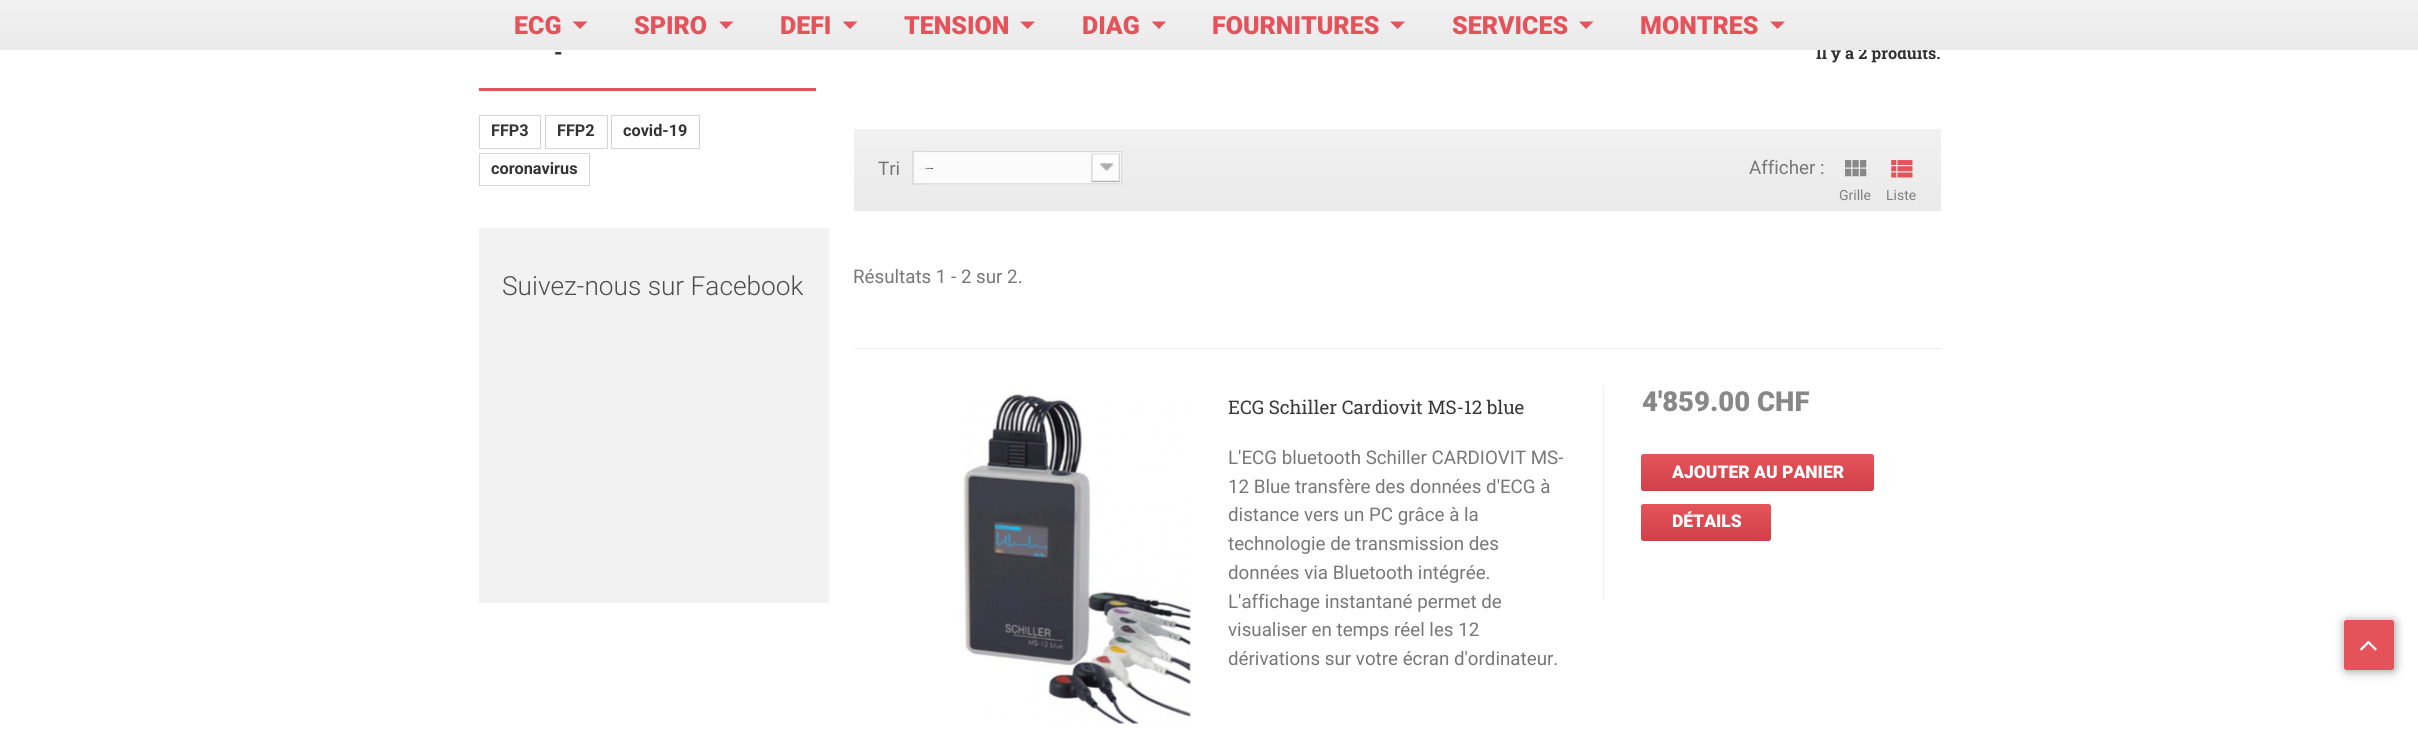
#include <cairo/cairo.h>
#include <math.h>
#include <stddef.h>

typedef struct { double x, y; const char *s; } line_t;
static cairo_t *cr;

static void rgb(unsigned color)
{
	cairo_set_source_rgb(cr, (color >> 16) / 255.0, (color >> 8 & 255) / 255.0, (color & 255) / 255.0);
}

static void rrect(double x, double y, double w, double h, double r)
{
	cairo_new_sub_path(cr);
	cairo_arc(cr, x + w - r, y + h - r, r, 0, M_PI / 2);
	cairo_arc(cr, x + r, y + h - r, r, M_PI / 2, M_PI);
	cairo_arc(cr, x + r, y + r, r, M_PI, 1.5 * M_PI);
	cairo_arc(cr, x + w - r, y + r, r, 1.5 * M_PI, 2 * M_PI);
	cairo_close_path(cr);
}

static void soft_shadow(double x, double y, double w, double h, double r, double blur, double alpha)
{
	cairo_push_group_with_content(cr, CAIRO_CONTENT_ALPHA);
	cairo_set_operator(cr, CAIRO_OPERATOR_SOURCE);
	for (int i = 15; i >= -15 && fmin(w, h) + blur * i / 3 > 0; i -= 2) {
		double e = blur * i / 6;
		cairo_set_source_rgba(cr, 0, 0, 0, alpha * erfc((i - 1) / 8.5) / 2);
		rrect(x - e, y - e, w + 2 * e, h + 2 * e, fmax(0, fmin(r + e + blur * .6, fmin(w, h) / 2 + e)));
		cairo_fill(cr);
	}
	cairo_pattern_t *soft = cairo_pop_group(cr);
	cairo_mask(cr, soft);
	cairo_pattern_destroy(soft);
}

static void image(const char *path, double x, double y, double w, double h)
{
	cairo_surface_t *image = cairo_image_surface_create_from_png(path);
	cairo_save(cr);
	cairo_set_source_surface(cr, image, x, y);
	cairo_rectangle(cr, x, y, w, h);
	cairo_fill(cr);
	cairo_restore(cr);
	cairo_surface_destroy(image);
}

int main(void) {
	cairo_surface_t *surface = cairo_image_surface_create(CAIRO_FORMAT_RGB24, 2418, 732);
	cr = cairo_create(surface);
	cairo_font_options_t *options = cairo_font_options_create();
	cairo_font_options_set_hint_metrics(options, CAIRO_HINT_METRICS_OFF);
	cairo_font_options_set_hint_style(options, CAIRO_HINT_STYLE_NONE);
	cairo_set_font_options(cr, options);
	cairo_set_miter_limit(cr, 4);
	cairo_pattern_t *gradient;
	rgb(0xffffff);
	cairo_paint(cr);
	gradient = cairo_pattern_create_linear(-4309, 0, -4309, 50);
	cairo_pattern_add_color_stop_rgba(gradient, 0, 0.945, 0.945, 0.945, 1);
	cairo_pattern_add_color_stop_rgba(gradient, 1, 0.918, 0.918, 0.918, 1);
	cairo_pattern_add_color_stop_rgba(gradient, 1, 0.894, 0.894, 0.894, 1);
	cairo_set_source(cr, gradient);
	cairo_pattern_destroy(gradient);
	cairo_rectangle(cr, 0, 0, 479, 50);
	cairo_fill(cr);
	gradient = cairo_pattern_create_linear(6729, 0, 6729, 50);
	cairo_pattern_add_color_stop_rgba(gradient, 0, 0.945, 0.945, 0.945, 1);
	cairo_pattern_add_color_stop_rgba(gradient, 1, 0.918, 0.918, 0.918, 1);
	cairo_pattern_add_color_stop_rgba(gradient, 1, 0.894, 0.894, 0.894, 1);
	cairo_set_source(cr, gradient);
	cairo_pattern_destroy(gradient);
	cairo_rectangle(cr, 1941, 0, 477, 50);
	cairo_fill(cr);
	rgb(0xe4525a);
	cairo_rectangle(cr, 479, 88, 337, 3);
	cairo_fill(cr);
	cairo_rectangle(cr, 479.5, 115.5, 61, 33);
	rgb(0xd6d4d4);
	cairo_set_line_width(cr, 1);
	cairo_stroke(cr);
	cairo_rectangle(cr, 545.5, 115.5, 62, 33);
	cairo_stroke(cr);
	cairo_rectangle(cr, 611.5, 115.5, 88, 33);
	cairo_stroke(cr);
	cairo_rectangle(cr, 479.5, 153.5, 110, 32);
	cairo_stroke(cr);
	rgb(0xf2f2f3);
	cairo_rectangle(cr, 479, 228, 350, 375);
	cairo_fill(cr);
	gradient = cairo_pattern_create_linear(1398, 129, 1398, 211);
	cairo_pattern_add_color_stop_rgba(gradient, 0, 0.945, 0.945, 0.945, 1);
	cairo_pattern_add_color_stop_rgba(gradient, 1, 0.918, 0.918, 0.918, 1);
	cairo_pattern_add_color_stop_rgba(gradient, 1, 0.894, 0.894, 0.894, 1);
	cairo_set_source(cr, gradient);
	cairo_pattern_destroy(gradient);
	cairo_rectangle(cr, 854, 129, 1087, 82);
	cairo_fill(cr);
	image("img/1.png", 912, 150, 13, 35);
	image("img/2.png", 925, 151, 198, 34);
	image("img/3.png", 1845, 160, 22, 17);
	image("img/4.png", 1891, 160, 22, 18);
	rgb(0xeeeeee);
	cairo_rectangle(cr, 854, 348, 1087, 1);
	cairo_fill(cr);
	image("img/5.png", 961, 391, 230, 333);
	cairo_rectangle(cr, 1603, 386, 1, 214);
	cairo_fill(cr);
	gradient = cairo_pattern_create_linear(1758, 454, 1758, 491);
	cairo_pattern_add_color_stop_rgba(gradient, 0, 0.898, 0.329, 0.357, 1);
	cairo_pattern_add_color_stop_rgba(gradient, 0.5, 0.859, 0.29, 0.318, 1);
	cairo_pattern_add_color_stop_rgba(gradient, 1, 0.82, 0.251, 0.282, 1);
	cairo_set_source(cr, gradient);
	cairo_pattern_destroy(gradient);
	rrect(1641, 454, 233, 37, 2.5);
	cairo_fill(cr);
	gradient = cairo_pattern_create_linear(1706, 504, 1706, 541);
	cairo_pattern_add_color_stop_rgba(gradient, 0, 0.898, 0.329, 0.357, 1);
	cairo_pattern_add_color_stop_rgba(gradient, 0.5, 0.859, 0.29, 0.318, 1);
	cairo_pattern_add_color_stop_rgba(gradient, 1, 0.82, 0.251, 0.282, 1);
	cairo_set_source(cr, gradient);
	cairo_pattern_destroy(gradient);
	rrect(1641, 504, 130, 37, 2.5);
	cairo_fill(cr);
	rgb(0x000000);
	soft_shadow(2345, 621, 50, 50, 2.5, 5, 0.4);
	rgb(0xe4525a);
	rrect(2344, 620, 50, 50, 2.5);
	cairo_fill(cr);
	image("img/6.png", 2360, 640, 17, 11);
	cairo_select_font_face(cr, "Roboto", CAIRO_FONT_SLANT_NORMAL, CAIRO_FONT_WEIGHT_BOLD);
	cairo_set_font_size(cr, 22);
	rgb(0x333333);
	cairo_move_to(cr, 554, 60);
	cairo_show_text(cr, "-");
	cairo_set_font_size(cr, 16.25);
	{
		static const line_t items[] = {
			{491, 136, "FFP3"},
			{557, 136, "FFP2"},
			{623, 136, "covid-19"},
			{491, 174, "coronavirus"},
		};
		for (size_t i = 0; i < sizeof items / sizeof *items; i++) {
			cairo_move_to(cr, items[i].x, items[i].y);
			cairo_show_text(cr, items[i].s);
		}
	}
	cairo_select_font_face(cr, "Roboto Light", CAIRO_FONT_SLANT_NORMAL, CAIRO_FONT_WEIGHT_NORMAL);
	cairo_set_font_size(cr, 26.25);
	rgb(0x4d4d4d);
	cairo_move_to(cr, 502, 295);
	cairo_show_text(cr, "Suivez-nous sur Facebook");
	cairo_select_font_face(cr, "Roboto Slab", CAIRO_FONT_SLANT_NORMAL, CAIRO_FONT_WEIGHT_BOLD);
	cairo_set_font_size(cr, 16.25);
	rgb(0x333333);
	cairo_move_to(cr, 1816, 59);
	cairo_show_text(cr, "Il y a 2 produits.");
	gradient = cairo_pattern_create_linear(1210, 0, 1210, 50);
	cairo_pattern_add_color_stop_rgba(gradient, 0, 0.945, 0.945, 0.945, 1);
	cairo_pattern_add_color_stop_rgba(gradient, 1, 0.918, 0.918, 0.918, 1);
	cairo_pattern_add_color_stop_rgba(gradient, 1, 0.894, 0.894, 0.894, 1);
	cairo_set_source(cr, gradient);
	cairo_pattern_destroy(gradient);
	cairo_rectangle(cr, 479, 0, 1462, 50);
	cairo_fill(cr);
	rgb(0xe4525a);
	cairo_new_path(cr);
	cairo_move_to(cr, 1770, 21.5);
	cairo_line_to(cr, 1777.5, 29);
	cairo_line_to(cr, 1785, 21.5);
	cairo_close_path(cr);
	cairo_fill(cr);
	cairo_select_font_face(cr, "Roboto Black", CAIRO_FONT_SLANT_NORMAL, CAIRO_FONT_WEIGHT_NORMAL);
	cairo_set_font_size(cr, 25);
	cairo_move_to(cr, 1640, 34);
	cairo_show_text(cr, "MONTRES");
	cairo_new_path(cr);
	cairo_move_to(cr, 1579, 21.5);
	cairo_line_to(cr, 1586, 29);
	cairo_line_to(cr, 1593.5, 21.5);
	cairo_close_path(cr);
	cairo_fill(cr);
	cairo_move_to(cr, 1452, 34);
	cairo_show_text(cr, "SERVICES");
	cairo_new_path(cr);
	cairo_move_to(cr, 1390, 21.5);
	cairo_line_to(cr, 1397.5, 29);
	cairo_line_to(cr, 1405, 21.5);
	cairo_close_path(cr);
	cairo_fill(cr);
	cairo_move_to(cr, 1212, 34);
	cairo_show_text(cr, "FOURNITURES");
	cairo_new_path(cr);
	cairo_move_to(cr, 1151.5, 21.5);
	cairo_line_to(cr, 1159, 29);
	cairo_line_to(cr, 1166, 21.5);
	cairo_close_path(cr);
	cairo_fill(cr);
	cairo_move_to(cr, 1082, 34);
	cairo_show_text(cr, "DIAG");
	cairo_new_path(cr);
	cairo_move_to(cr, 1020, 21.5);
	cairo_line_to(cr, 1027.5, 29);
	cairo_line_to(cr, 1035, 21.5);
	cairo_close_path(cr);
	cairo_fill(cr);
	cairo_move_to(cr, 904, 34);
	cairo_show_text(cr, "TENSION");
	cairo_new_path(cr);
	cairo_move_to(cr, 842.5, 21.5);
	cairo_line_to(cr, 850, 29);
	cairo_line_to(cr, 857.5, 21.5);
	cairo_close_path(cr);
	cairo_fill(cr);
	cairo_move_to(cr, 780, 34);
	cairo_show_text(cr, "DEFI");
	cairo_new_path(cr);
	cairo_move_to(cr, 719, 21.5);
	cairo_line_to(cr, 726, 29);
	cairo_line_to(cr, 733.5, 21.5);
	cairo_close_path(cr);
	cairo_fill(cr);
	cairo_move_to(cr, 634, 34);
	cairo_show_text(cr, "SPIRO");
	cairo_new_path(cr);
	cairo_move_to(cr, 572.5, 21.5);
	cairo_line_to(cr, 580, 29);
	cairo_line_to(cr, 587.5, 21.5);
	cairo_close_path(cr);
	cairo_fill(cr);
	cairo_move_to(cr, 514, 34);
	cairo_show_text(cr, "ECG");
	cairo_select_font_face(cr, "Roboto", CAIRO_FONT_SLANT_NORMAL, CAIRO_FONT_WEIGHT_NORMAL);
	cairo_set_font_size(cr, 18.75);
	rgb(0x777777);
	cairo_move_to(cr, 878, 175);
	cairo_show_text(cr, "Tri");
	cairo_set_font_size(cr, 15);
	rgb(0x666666);
	cairo_move_to(cr, 925, 173);
	cairo_show_text(cr, "--");
	cairo_select_font_face(cr, "Liberation Sans", CAIRO_FONT_SLANT_NORMAL, CAIRO_FONT_WEIGHT_NORMAL);
	rgb(0xe8e8e8);
	cairo_move_to(cr, 918, 173);
	cairo_show_text(cr, "--");
	cairo_select_font_face(cr, "Roboto", CAIRO_FONT_SLANT_NORMAL, CAIRO_FONT_WEIGHT_NORMAL);
	cairo_set_font_size(cr, 18.75);
	rgb(0x777777);
	cairo_move_to(cr, 1749, 174);
	cairo_show_text(cr, "Afficher :");
	cairo_set_font_size(cr, 14);
	rgb(0x808080);
	cairo_move_to(cr, 1839, 200);
	cairo_show_text(cr, "Grille");
	cairo_move_to(cr, 1886, 200);
	cairo_show_text(cr, "Liste");
	cairo_set_font_size(cr, 18.75);
	rgb(0x777777);
	cairo_move_to(cr, 853, 283);
	cairo_show_text(cr, "Résultats 1 - 2 sur 2.");
	cairo_select_font_face(cr, "Roboto Slab", CAIRO_FONT_SLANT_NORMAL, CAIRO_FONT_WEIGHT_NORMAL);
	rgb(0x3a3939);
	cairo_move_to(cr, 1228, 414);
	cairo_show_text(cr, "ECG Schiller Cardiovit MS-12 blue");
	cairo_select_font_face(cr, "Roboto", CAIRO_FONT_SLANT_NORMAL, CAIRO_FONT_WEIGHT_NORMAL);
	rgb(0x777777);
	{
		static const line_t items[] = {
			{1228, 464, "L'ECG bluetooth Schiller CARDIOVIT MS-"},
			{1228, 493, "12 Blue transfère des données d'ECG à"},
			{1228, 521, "distance vers un PC grâce à la"},
			{1228, 550, "technologie de transmission des"},
			{1228, 579, "données via Bluetooth intégrée."},
			{1228, 608, "L'affichage instantané permet de"},
			{1228, 636, "visualiser en temps réel les 12"},
			{1228, 665, "dérivations sur votre écran d'ordinateur."},
		};
		for (size_t i = 0; i < sizeof items / sizeof *items; i++) {
			cairo_move_to(cr, items[i].x, items[i].y);
			cairo_show_text(cr, items[i].s);
		}
	}
	cairo_select_font_face(cr, "Roboto Black", CAIRO_FONT_SLANT_NORMAL, CAIRO_FONT_WEIGHT_NORMAL);
	cairo_set_font_size(cr, 27.5);
	rgb(0x888888);
	cairo_move_to(cr, 1642, 411);
	cairo_show_text(cr, "4'859.00 CHF");
	cairo_set_font_size(cr, 17.5);
	rgb(0xffffff);
	cairo_move_to(cr, 1672, 478);
	cairo_show_text(cr, "AJOUTER AU PANIER");
	cairo_move_to(cr, 1672, 527);
	cairo_show_text(cr, "DÉTAILS");
	cairo_surface_write_to_png(surface, "page.png");
	cairo_font_options_destroy(options);
	cairo_destroy(cr);
	cairo_surface_destroy(surface);
	return 0;
}
